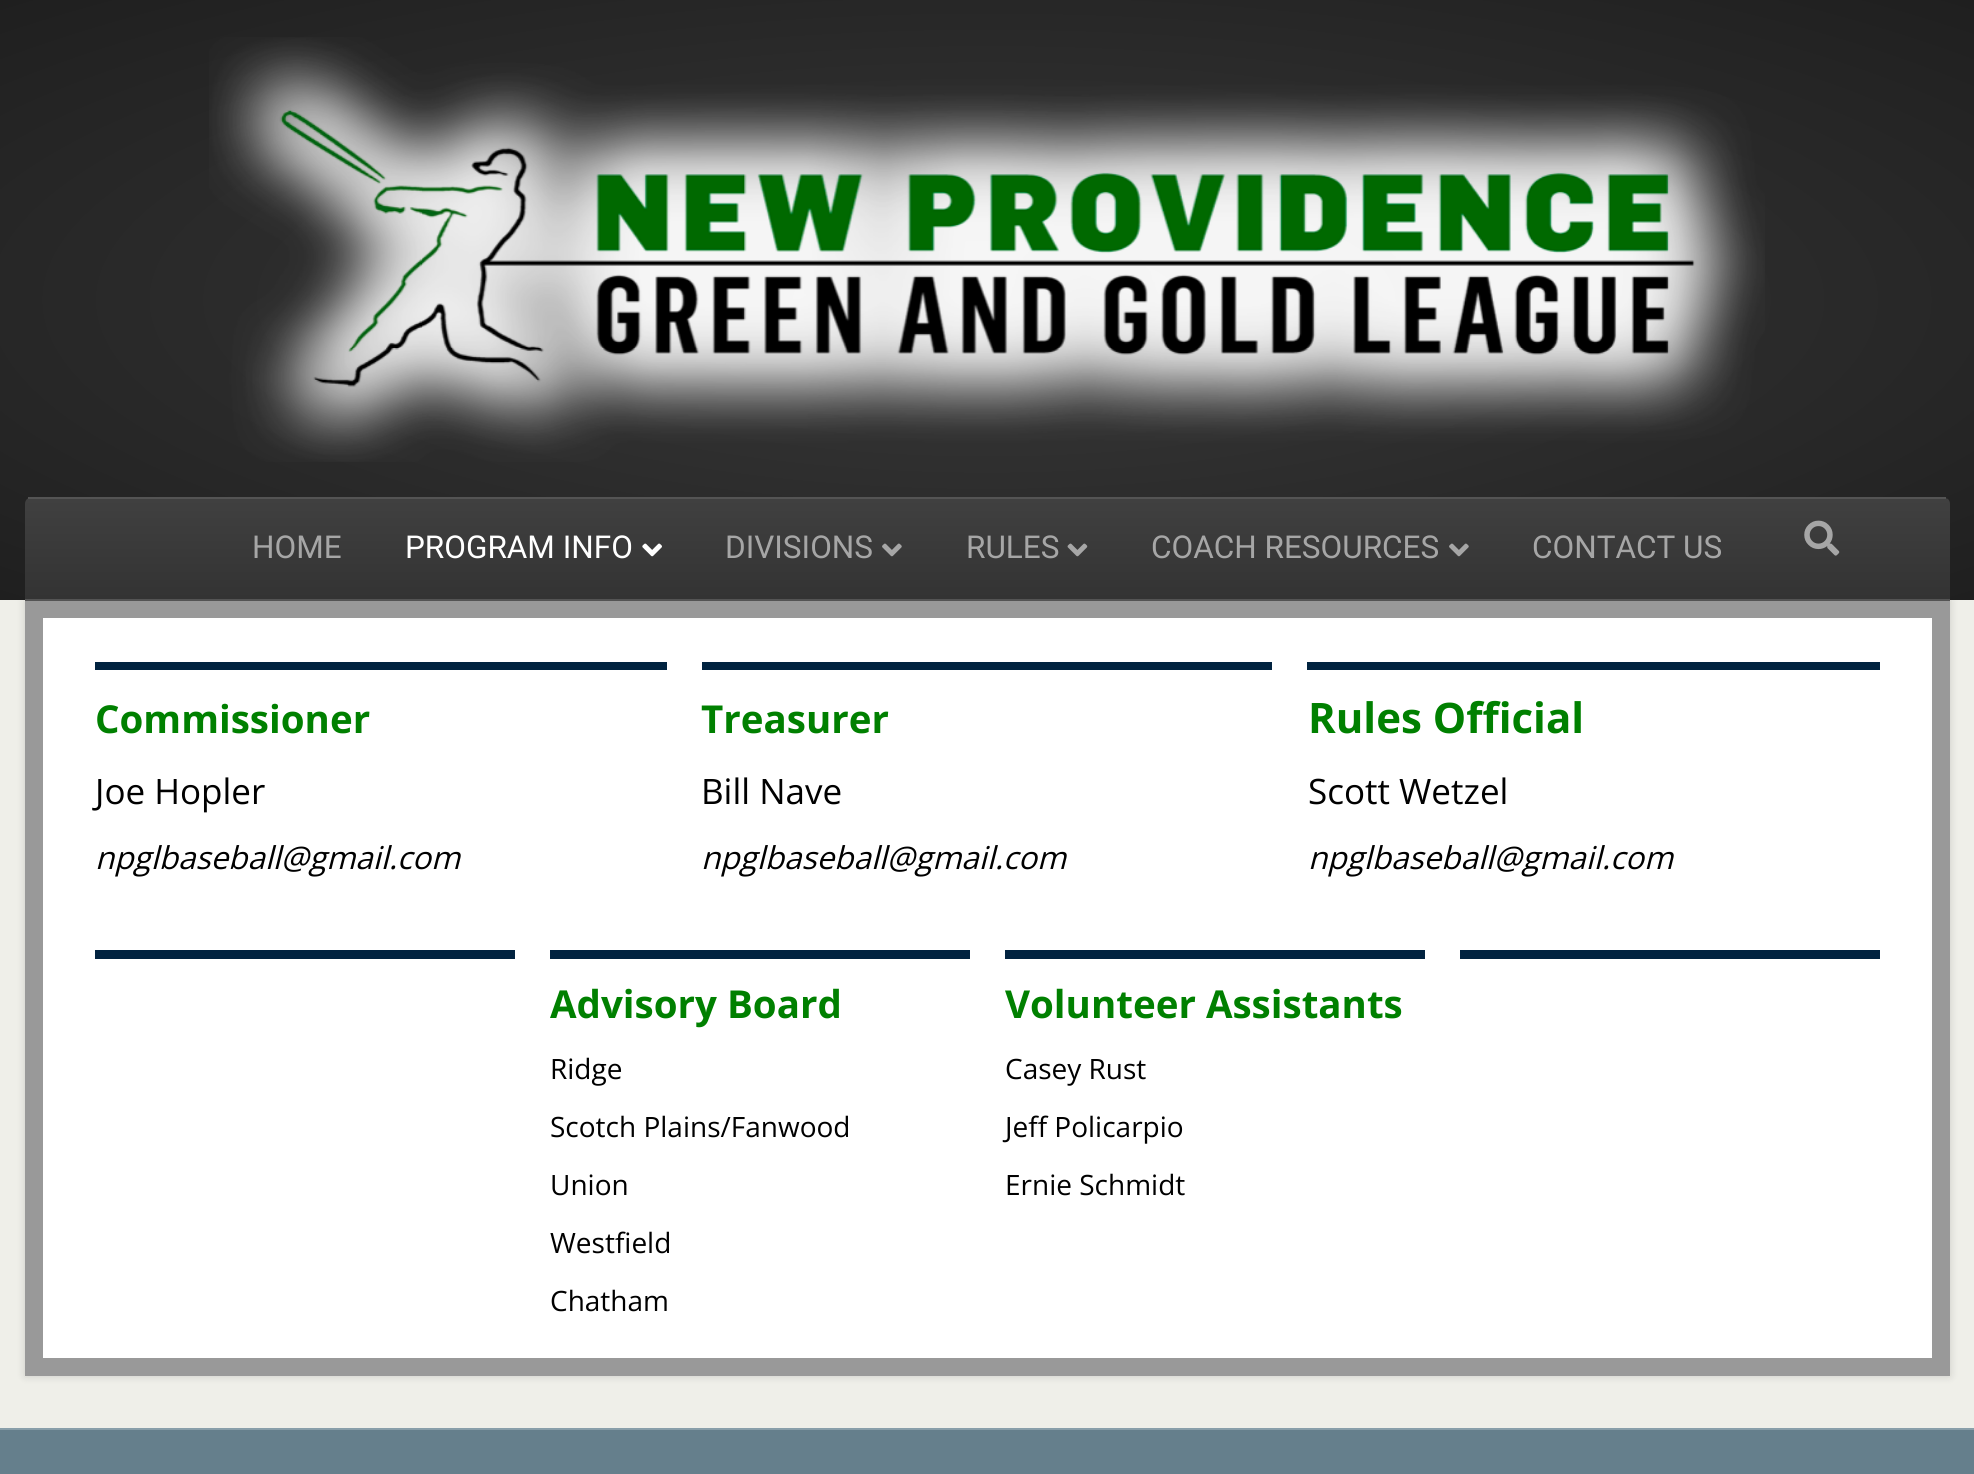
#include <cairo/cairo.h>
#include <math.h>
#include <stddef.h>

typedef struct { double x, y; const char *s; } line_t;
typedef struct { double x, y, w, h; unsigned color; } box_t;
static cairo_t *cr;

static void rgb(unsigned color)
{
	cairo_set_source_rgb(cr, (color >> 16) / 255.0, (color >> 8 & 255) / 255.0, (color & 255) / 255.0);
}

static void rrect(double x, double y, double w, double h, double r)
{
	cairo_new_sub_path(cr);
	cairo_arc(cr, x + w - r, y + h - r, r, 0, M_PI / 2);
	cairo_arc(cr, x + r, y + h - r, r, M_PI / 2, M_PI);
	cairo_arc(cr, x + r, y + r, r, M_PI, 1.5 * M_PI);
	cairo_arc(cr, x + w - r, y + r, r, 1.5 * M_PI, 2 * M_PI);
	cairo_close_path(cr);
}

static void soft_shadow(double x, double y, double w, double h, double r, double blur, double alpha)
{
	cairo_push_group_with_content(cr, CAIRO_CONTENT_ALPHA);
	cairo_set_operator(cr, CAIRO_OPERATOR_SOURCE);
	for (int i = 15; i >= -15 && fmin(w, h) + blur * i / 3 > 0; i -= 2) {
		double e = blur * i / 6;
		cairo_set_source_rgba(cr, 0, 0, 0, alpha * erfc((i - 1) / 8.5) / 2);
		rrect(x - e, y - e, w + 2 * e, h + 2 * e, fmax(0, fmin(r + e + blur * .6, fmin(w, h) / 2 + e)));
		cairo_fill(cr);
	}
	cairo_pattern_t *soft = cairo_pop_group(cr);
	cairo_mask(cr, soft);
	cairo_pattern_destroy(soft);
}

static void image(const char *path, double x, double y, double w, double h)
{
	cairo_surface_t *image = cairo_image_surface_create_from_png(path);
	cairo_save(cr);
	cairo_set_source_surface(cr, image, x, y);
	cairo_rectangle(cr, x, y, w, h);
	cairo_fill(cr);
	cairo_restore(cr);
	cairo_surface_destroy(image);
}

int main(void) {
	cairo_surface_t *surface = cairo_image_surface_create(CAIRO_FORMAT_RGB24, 1974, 1474);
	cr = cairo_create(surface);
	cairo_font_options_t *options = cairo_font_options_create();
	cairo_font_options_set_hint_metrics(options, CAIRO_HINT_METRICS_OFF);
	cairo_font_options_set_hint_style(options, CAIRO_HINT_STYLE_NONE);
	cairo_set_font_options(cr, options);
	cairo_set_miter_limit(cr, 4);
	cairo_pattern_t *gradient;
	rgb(0xefefe9);
	cairo_paint(cr);
	rgb(0x000000);
	soft_shadow(25, 600, 1925, 776, 0, 4.5, 0.15);
	gradient = cairo_pattern_create_radial(0, 0, 0, 0, 0, 1);
	cairo_pattern_set_matrix(gradient, &(cairo_matrix_t){1.0 / 1396, 0, 0, 1.0 / 424, -1.0 * 987 / 1396, -1.0 * 300 / 424});
	cairo_pattern_add_color_stop_rgba(gradient, 0, 0.224, 0.224, 0.224, 1);
	cairo_pattern_add_color_stop_rgba(gradient, 1, 0.122, 0.122, 0.122, 1);
	cairo_set_source(cr, gradient);
	cairo_pattern_destroy(gradient);
	cairo_rectangle(cr, 0, 0, 1974, 600);
	cairo_fill(cr);
	image("img/1.png", 209, 37, 1556, 425);
	cairo_save(cr);
	cairo_new_path(cr);
	cairo_move_to(cr, 32, 497);
	cairo_line_to(cr, 1943, 497);
	cairo_curve_to(cr, 1947, 497, 1950, 500, 1950, 504);
	cairo_line_to(cr, 1950, 600);
	cairo_line_to(cr, 25, 600);
	cairo_line_to(cr, 25, 504);
	cairo_curve_to(cr, 25, 500, 28, 497, 32, 497);
	cairo_close_path(cr);
	cairo_clip(cr);
	gradient = cairo_pattern_create_linear(987, 399, 987, 499);
	cairo_pattern_add_color_stop_rgba(gradient, 0, 0.251, 0.251, 0.251, 1);
	cairo_pattern_add_color_stop_rgba(gradient, 1, 0.2, 0.2, 0.2, 1);
	cairo_set_source(cr, gradient);
	cairo_pattern_destroy(gradient);
	cairo_rectangle(cr, 25, 497, 1925, 2);
	cairo_fill(cr);
	gradient = cairo_pattern_create_linear(987, 499, 987, 599);
	cairo_pattern_add_color_stop_rgba(gradient, 0, 0.251, 0.251, 0.251, 1);
	cairo_pattern_add_color_stop_rgba(gradient, 1, 0.2, 0.2, 0.2, 1);
	cairo_set_source(cr, gradient);
	cairo_pattern_destroy(gradient);
	cairo_rectangle(cr, 25, 499, 1925, 100);
	cairo_fill(cr);
	cairo_restore(cr);
	rgb(0x545454);
	cairo_rectangle(cr, 28, 497, 1918, 2);
	cairo_fill(cr);
	rgb(0xffffff);
	cairo_rectangle(cr, 34, 609, 1907, 758);
	cairo_fill_preserve(cr);
	rgb(0x999999);
	cairo_set_line_width(cr, 18);
	cairo_stroke(cr);
	rgb(0x545454);
	cairo_rectangle(cr, 25, 599, 1925, 2);
	cairo_fill(cr);
	image("img/2.png", 642, 543, 20, 14);
	image("img/3.png", 882, 543, 20, 14);
	image("img/4.png", 1067, 543, 21, 14);
	image("img/3.png", 1449, 543, 20, 14);
	image("img/5.png", 1804, 520, 36, 36);
	{
		static const box_t items[] = {
			{95, 662, 572, 8, 0x012340},
			{702, 662, 570, 8, 0x012340},
			{1307, 662, 573, 8, 0x012340},
			{95, 950, 420, 9, 0x012340},
			{1460, 950, 420, 9, 0x012340},
			{550, 950, 420, 9, 0x012340},
			{1005, 950, 420, 9, 0x012340},
			{0, 1430, 1974, 44, 0x657f8c},
			{0, 1428, 1974, 2, 0x899faa},
		};
		for (size_t i = 0; i < sizeof items / sizeof *items; i++) {
			rgb(items[i].color);
			cairo_rectangle(cr, items[i].x, items[i].y, items[i].w, items[i].h);
			cairo_fill(cr);
		}
	}
	cairo_select_font_face(cr, "Roboto", CAIRO_FONT_SLANT_NORMAL, CAIRO_FONT_WEIGHT_NORMAL);
	cairo_set_font_size(cr, 31.5);
	rgb(0xa6a6a6);
	cairo_move_to(cr, 252, 558);
	cairo_show_text(cr, "HOME");
	rgb(0xffffff);
	cairo_move_to(cr, 405, 558);
	cairo_show_text(cr, "PROGRAM INFO");
	rgb(0xa6a6a6);
	{
		static const line_t items[] = {
			{725, 558, "DIVISIONS"},
			{966, 558, "RULES"},
			{1151, 558, "COACH RESOURCES"},
			{1532, 558, "CONTACT US"},
		};
		for (size_t i = 0; i < sizeof items / sizeof *items; i++) {
			cairo_move_to(cr, items[i].x, items[i].y);
			cairo_show_text(cr, items[i].s);
		}
	}
	cairo_select_font_face(cr, "Open Sans", CAIRO_FONT_SLANT_NORMAL, CAIRO_FONT_WEIGHT_BOLD);
	cairo_set_font_size(cr, 38.5);
	rgb(0x008000);
	cairo_move_to(cr, 95, 733);
	cairo_show_text(cr, "Commissioner");
	cairo_select_font_face(cr, "Open Sans", CAIRO_FONT_SLANT_NORMAL, CAIRO_FONT_WEIGHT_NORMAL);
	cairo_set_font_size(cr, 35);
	rgb(0x000000);
	cairo_move_to(cr, 95, 804);
	cairo_show_text(cr, "Joe Hopler");
	cairo_select_font_face(cr, "Open Sans", CAIRO_FONT_SLANT_ITALIC, CAIRO_FONT_WEIGHT_NORMAL);
	cairo_set_font_size(cr, 31.5);
	cairo_move_to(cr, 95, 869);
	cairo_show_text(cr, "npglbaseball@gmail.com");
	cairo_select_font_face(cr, "Open Sans", CAIRO_FONT_SLANT_NORMAL, CAIRO_FONT_WEIGHT_BOLD);
	cairo_set_font_size(cr, 38.5);
	rgb(0x008000);
	cairo_move_to(cr, 701, 733);
	cairo_show_text(cr, "Treasurer");
	cairo_select_font_face(cr, "Open Sans", CAIRO_FONT_SLANT_NORMAL, CAIRO_FONT_WEIGHT_NORMAL);
	cairo_set_font_size(cr, 35);
	rgb(0x000000);
	cairo_move_to(cr, 701, 804);
	cairo_show_text(cr, "Bill Nave");
	cairo_select_font_face(cr, "Open Sans", CAIRO_FONT_SLANT_ITALIC, CAIRO_FONT_WEIGHT_NORMAL);
	cairo_set_font_size(cr, 31.5);
	cairo_move_to(cr, 701, 869);
	cairo_show_text(cr, "npglbaseball@gmail.com");
	cairo_select_font_face(cr, "Open Sans", CAIRO_FONT_SLANT_NORMAL, CAIRO_FONT_WEIGHT_BOLD);
	cairo_set_font_size(cr, 42);
	rgb(0x008000);
	cairo_move_to(cr, 1308, 733);
	cairo_show_text(cr, "Rules Official");
	cairo_select_font_face(cr, "Open Sans", CAIRO_FONT_SLANT_NORMAL, CAIRO_FONT_WEIGHT_NORMAL);
	cairo_set_font_size(cr, 35);
	rgb(0x000000);
	cairo_move_to(cr, 1308, 804);
	cairo_show_text(cr, "Scott Wetzel");
	cairo_select_font_face(cr, "Open Sans", CAIRO_FONT_SLANT_ITALIC, CAIRO_FONT_WEIGHT_NORMAL);
	cairo_set_font_size(cr, 31.5);
	cairo_move_to(cr, 1308, 869);
	cairo_show_text(cr, "npglbaseball@gmail.com");
	cairo_select_font_face(cr, "Open Sans", CAIRO_FONT_SLANT_NORMAL, CAIRO_FONT_WEIGHT_BOLD);
	cairo_set_font_size(cr, 38.5);
	rgb(0x008000);
	cairo_move_to(cr, 550, 1018);
	cairo_show_text(cr, "Advisory Board");
	cairo_select_font_face(cr, "Open Sans", CAIRO_FONT_SLANT_NORMAL, CAIRO_FONT_WEIGHT_NORMAL);
	cairo_set_font_size(cr, 28);
	rgb(0x000000);
	{
		static const line_t items[] = {
			{550, 1079, "Ridge"},
			{550, 1137, "Scotch Plains/Fanwood"},
			{550, 1195, "Union"},
			{550, 1253, "Westfield"},
			{550, 1311, "Chatham"},
		};
		for (size_t i = 0; i < sizeof items / sizeof *items; i++) {
			cairo_move_to(cr, items[i].x, items[i].y);
			cairo_show_text(cr, items[i].s);
		}
	}
	cairo_select_font_face(cr, "Open Sans", CAIRO_FONT_SLANT_NORMAL, CAIRO_FONT_WEIGHT_BOLD);
	cairo_set_font_size(cr, 38.5);
	rgb(0x008000);
	cairo_move_to(cr, 1005, 1018);
	cairo_show_text(cr, "Volunteer Assistants");
	cairo_select_font_face(cr, "Open Sans", CAIRO_FONT_SLANT_NORMAL, CAIRO_FONT_WEIGHT_NORMAL);
	cairo_set_font_size(cr, 28);
	rgb(0x000000);
	{
		static const line_t items[] = {
			{1005, 1079, "Casey Rust"},
			{1005, 1137, "Jeff Policarpio"},
			{1005, 1195, "Ernie Schmidt"},
		};
		for (size_t i = 0; i < sizeof items / sizeof *items; i++) {
			cairo_move_to(cr, items[i].x, items[i].y);
			cairo_show_text(cr, items[i].s);
		}
	}
	cairo_surface_write_to_png(surface, "page.png");
	cairo_font_options_destroy(options);
	cairo_destroy(cr);
	cairo_surface_destroy(surface);
	return 0;
}
